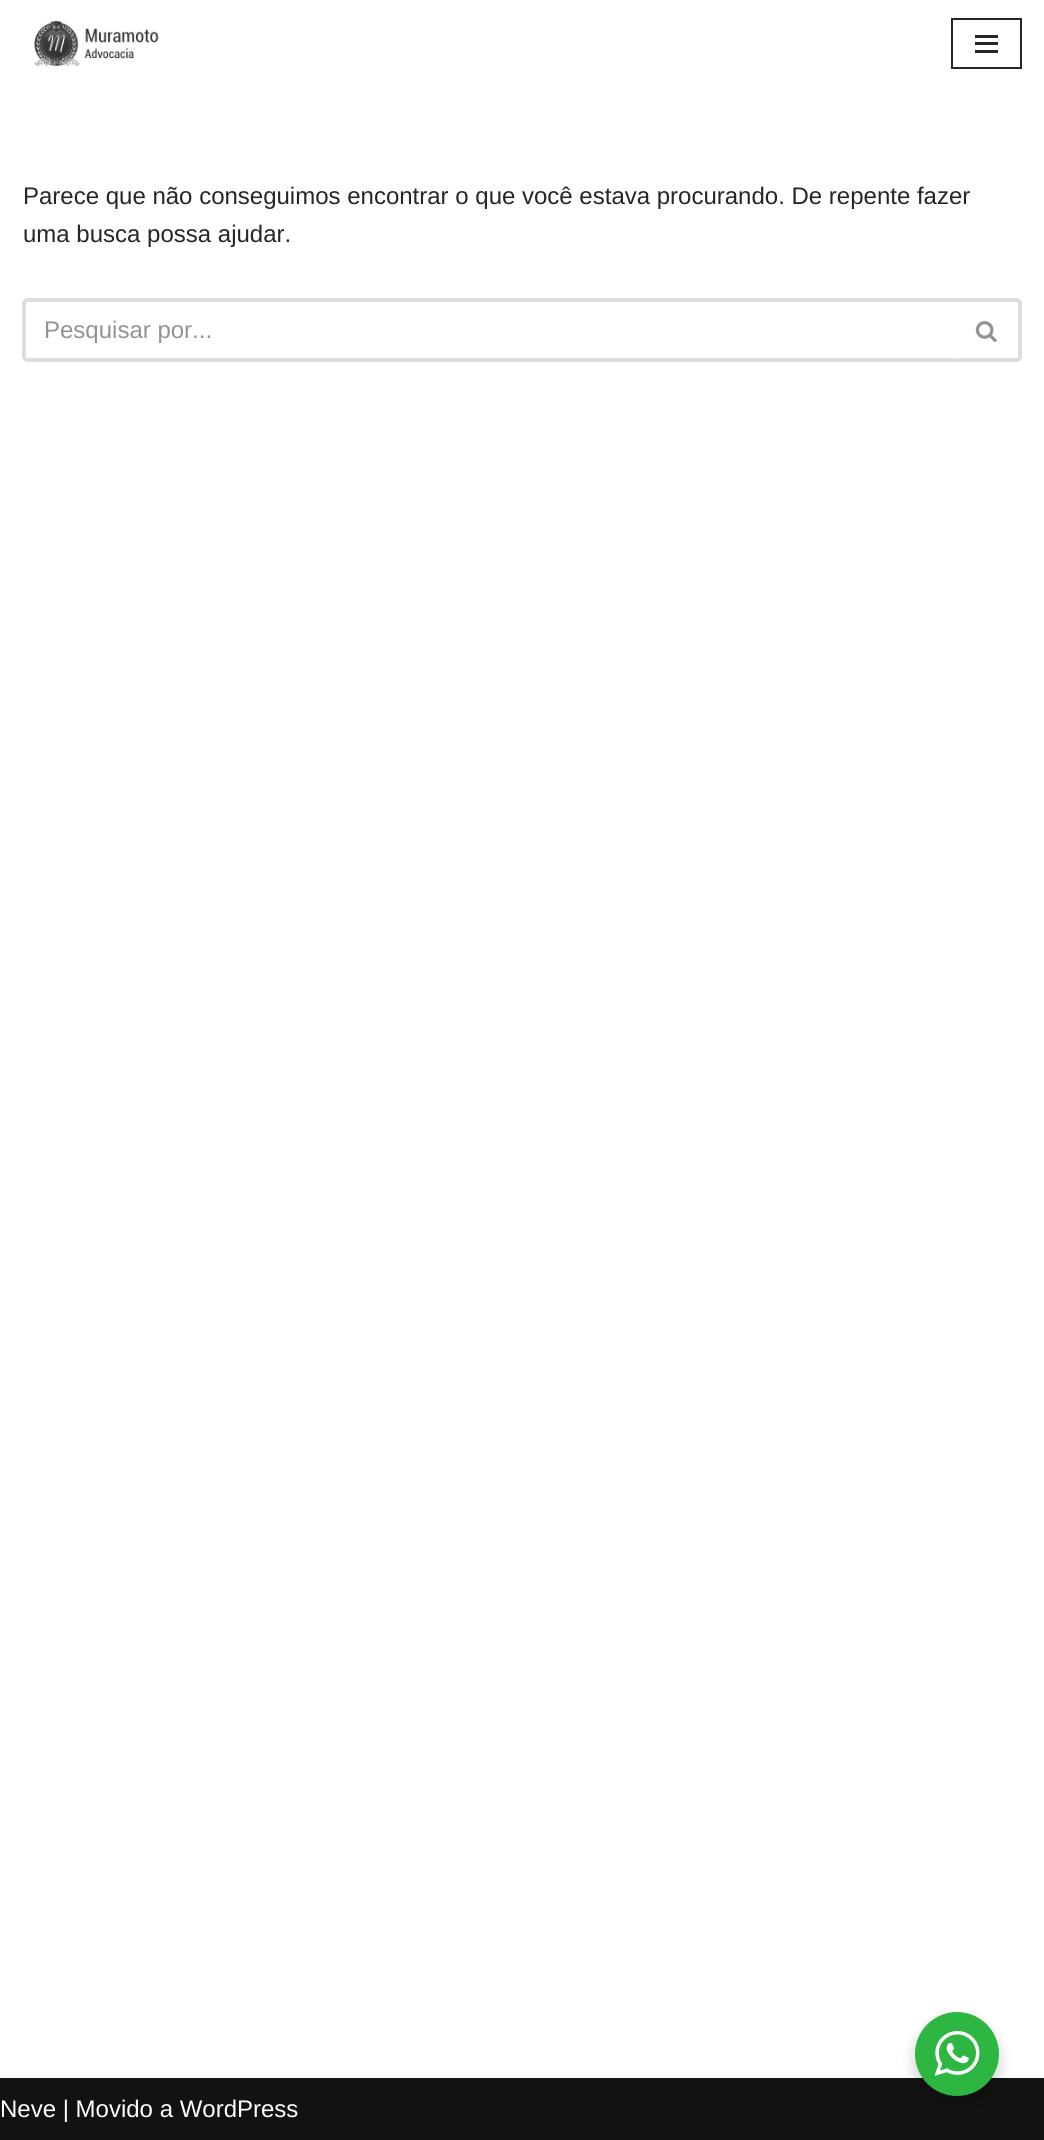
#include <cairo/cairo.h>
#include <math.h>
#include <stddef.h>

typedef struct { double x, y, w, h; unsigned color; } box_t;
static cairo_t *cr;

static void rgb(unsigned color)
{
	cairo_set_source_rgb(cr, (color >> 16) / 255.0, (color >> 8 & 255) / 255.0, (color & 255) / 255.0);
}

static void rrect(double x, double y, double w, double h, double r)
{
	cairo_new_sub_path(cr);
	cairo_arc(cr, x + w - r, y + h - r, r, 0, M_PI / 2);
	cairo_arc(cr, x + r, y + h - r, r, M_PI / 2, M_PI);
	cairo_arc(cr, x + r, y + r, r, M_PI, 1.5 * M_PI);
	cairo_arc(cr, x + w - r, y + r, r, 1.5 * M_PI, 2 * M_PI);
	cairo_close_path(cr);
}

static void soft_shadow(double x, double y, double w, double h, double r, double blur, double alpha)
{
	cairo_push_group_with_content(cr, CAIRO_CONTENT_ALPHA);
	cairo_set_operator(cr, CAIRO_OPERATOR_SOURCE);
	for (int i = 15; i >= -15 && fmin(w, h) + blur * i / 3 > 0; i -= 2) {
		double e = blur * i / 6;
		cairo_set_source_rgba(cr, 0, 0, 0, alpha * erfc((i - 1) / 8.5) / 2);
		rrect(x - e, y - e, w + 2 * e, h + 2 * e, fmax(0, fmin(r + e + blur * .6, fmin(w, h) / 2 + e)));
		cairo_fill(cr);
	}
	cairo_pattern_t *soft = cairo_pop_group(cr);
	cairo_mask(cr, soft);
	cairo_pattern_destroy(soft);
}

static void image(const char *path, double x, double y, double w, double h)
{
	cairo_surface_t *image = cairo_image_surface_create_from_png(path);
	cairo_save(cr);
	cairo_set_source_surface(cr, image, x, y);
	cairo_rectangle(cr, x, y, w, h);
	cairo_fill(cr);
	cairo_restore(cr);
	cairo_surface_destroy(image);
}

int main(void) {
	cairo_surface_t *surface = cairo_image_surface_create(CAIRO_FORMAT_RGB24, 1044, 2140);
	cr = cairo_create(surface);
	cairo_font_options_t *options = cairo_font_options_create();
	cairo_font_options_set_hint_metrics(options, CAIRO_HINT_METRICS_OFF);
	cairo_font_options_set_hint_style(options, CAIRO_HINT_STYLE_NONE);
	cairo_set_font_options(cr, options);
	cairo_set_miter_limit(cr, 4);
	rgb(0xffffff);
	cairo_paint(cr);
	image("img/1.png", 34, 21, 125, 45);
	cairo_rectangle(cr, 952, 19, 69, 49);
	rgb(0x272626);
	cairo_stroke(cr);
	{
		static const box_t items[] = {
			{975, 35, 23, 3, 0x272626},
			{975, 42, 23, 3, 0x272626},
			{975, 50, 23, 3, 0x272626},
		};
		for (size_t i = 0; i < sizeof items / sizeof *items; i++) {
			rgb(items[i].color);
			cairo_rectangle(cr, items[i].x, items[i].y, items[i].w, items[i].h);
			cairo_fill(cr);
		}
	}
	rgb(0xdddddd);
	cairo_set_fill_rule(cr, CAIRO_FILL_RULE_EVEN_ODD);
	cairo_new_path(cr);
	cairo_move_to(cr, 27, 298);
	cairo_line_to(cr, 954, 298);
	cairo_line_to(cr, 954, 362);
	cairo_line_to(cr, 27, 362);
	cairo_curve_to(cr, 25, 362, 22, 359, 22, 357);
	cairo_line_to(cr, 22, 303);
	cairo_curve_to(cr, 22, 301, 25, 298, 27, 298);
	cairo_close_path(cr);
	cairo_move_to(cr, 27, 302);
	cairo_line_to(cr, 954, 302);
	cairo_line_to(cr, 954, 358);
	cairo_line_to(cr, 27, 358);
	cairo_curve_to(cr, 26, 358, 26, 358, 26, 357);
	cairo_line_to(cr, 26, 303);
	cairo_curve_to(cr, 26, 302, 26, 302, 27, 302);
	cairo_close_path(cr);
	cairo_fill(cr);
	cairo_new_path(cr);
	cairo_move_to(cr, 954, 298);
	cairo_line_to(cr, 1017, 298);
	cairo_curve_to(cr, 1019, 298, 1022, 301, 1022, 303);
	cairo_line_to(cr, 1022, 357);
	cairo_curve_to(cr, 1022, 359, 1019, 362, 1017, 362);
	cairo_line_to(cr, 954, 362);
	cairo_close_path(cr);
	cairo_move_to(cr, 954, 302);
	cairo_line_to(cr, 1017, 302);
	cairo_curve_to(cr, 1018, 302, 1018, 302, 1018, 303);
	cairo_line_to(cr, 1018, 357);
	cairo_curve_to(cr, 1018, 358, 1018, 358, 1017, 358);
	cairo_line_to(cr, 954, 358);
	cairo_close_path(cr);
	cairo_fill(cr);
	image("img/2.png", 975, 321, 22, 21);
	rgb(0xffffff);
	cairo_rectangle(cr, 954, 358, 1, 1);
	cairo_fill(cr);
	rgb(0x121212);
	cairo_rectangle(cr, 0, 2078, 1044, 62);
	cairo_fill(cr);
	rgb(0x000000);
	soft_shadow(912, 2018, 90, 90, 45, 6, 0.14);
	rgb(0x2db742);
	cairo_arc(cr, 957, 2054, 42, 0, 2 * M_PI);
	cairo_fill(cr);
	image("img/3.png", 935, 2031, 45, 45);
	cairo_select_font_face(cr, "Liberation Sans", CAIRO_FONT_SLANT_NORMAL, CAIRO_FONT_WEIGHT_NORMAL);
	cairo_set_font_size(cr, 24);
	rgb(0x272626);
	cairo_move_to(cr, 23, 204);
	cairo_show_text(cr, "Parece que não conseguimos encontrar o que você estava procurando. De repente fazer");
	cairo_move_to(cr, 23, 242);
	cairo_show_text(cr, "uma busca possa ajudar.");
	rgb(0x939393);
	cairo_move_to(cr, 44, 338);
	cairo_show_text(cr, "Pesquisar por...");
	rgb(0xffffff);
	cairo_move_to(cr, 0, 2117);
	cairo_show_text(cr, "Neve | Movido a WordPress");
	cairo_surface_write_to_png(surface, "page.png");
	cairo_font_options_destroy(options);
	cairo_destroy(cr);
	cairo_surface_destroy(surface);
	return 0;
}
